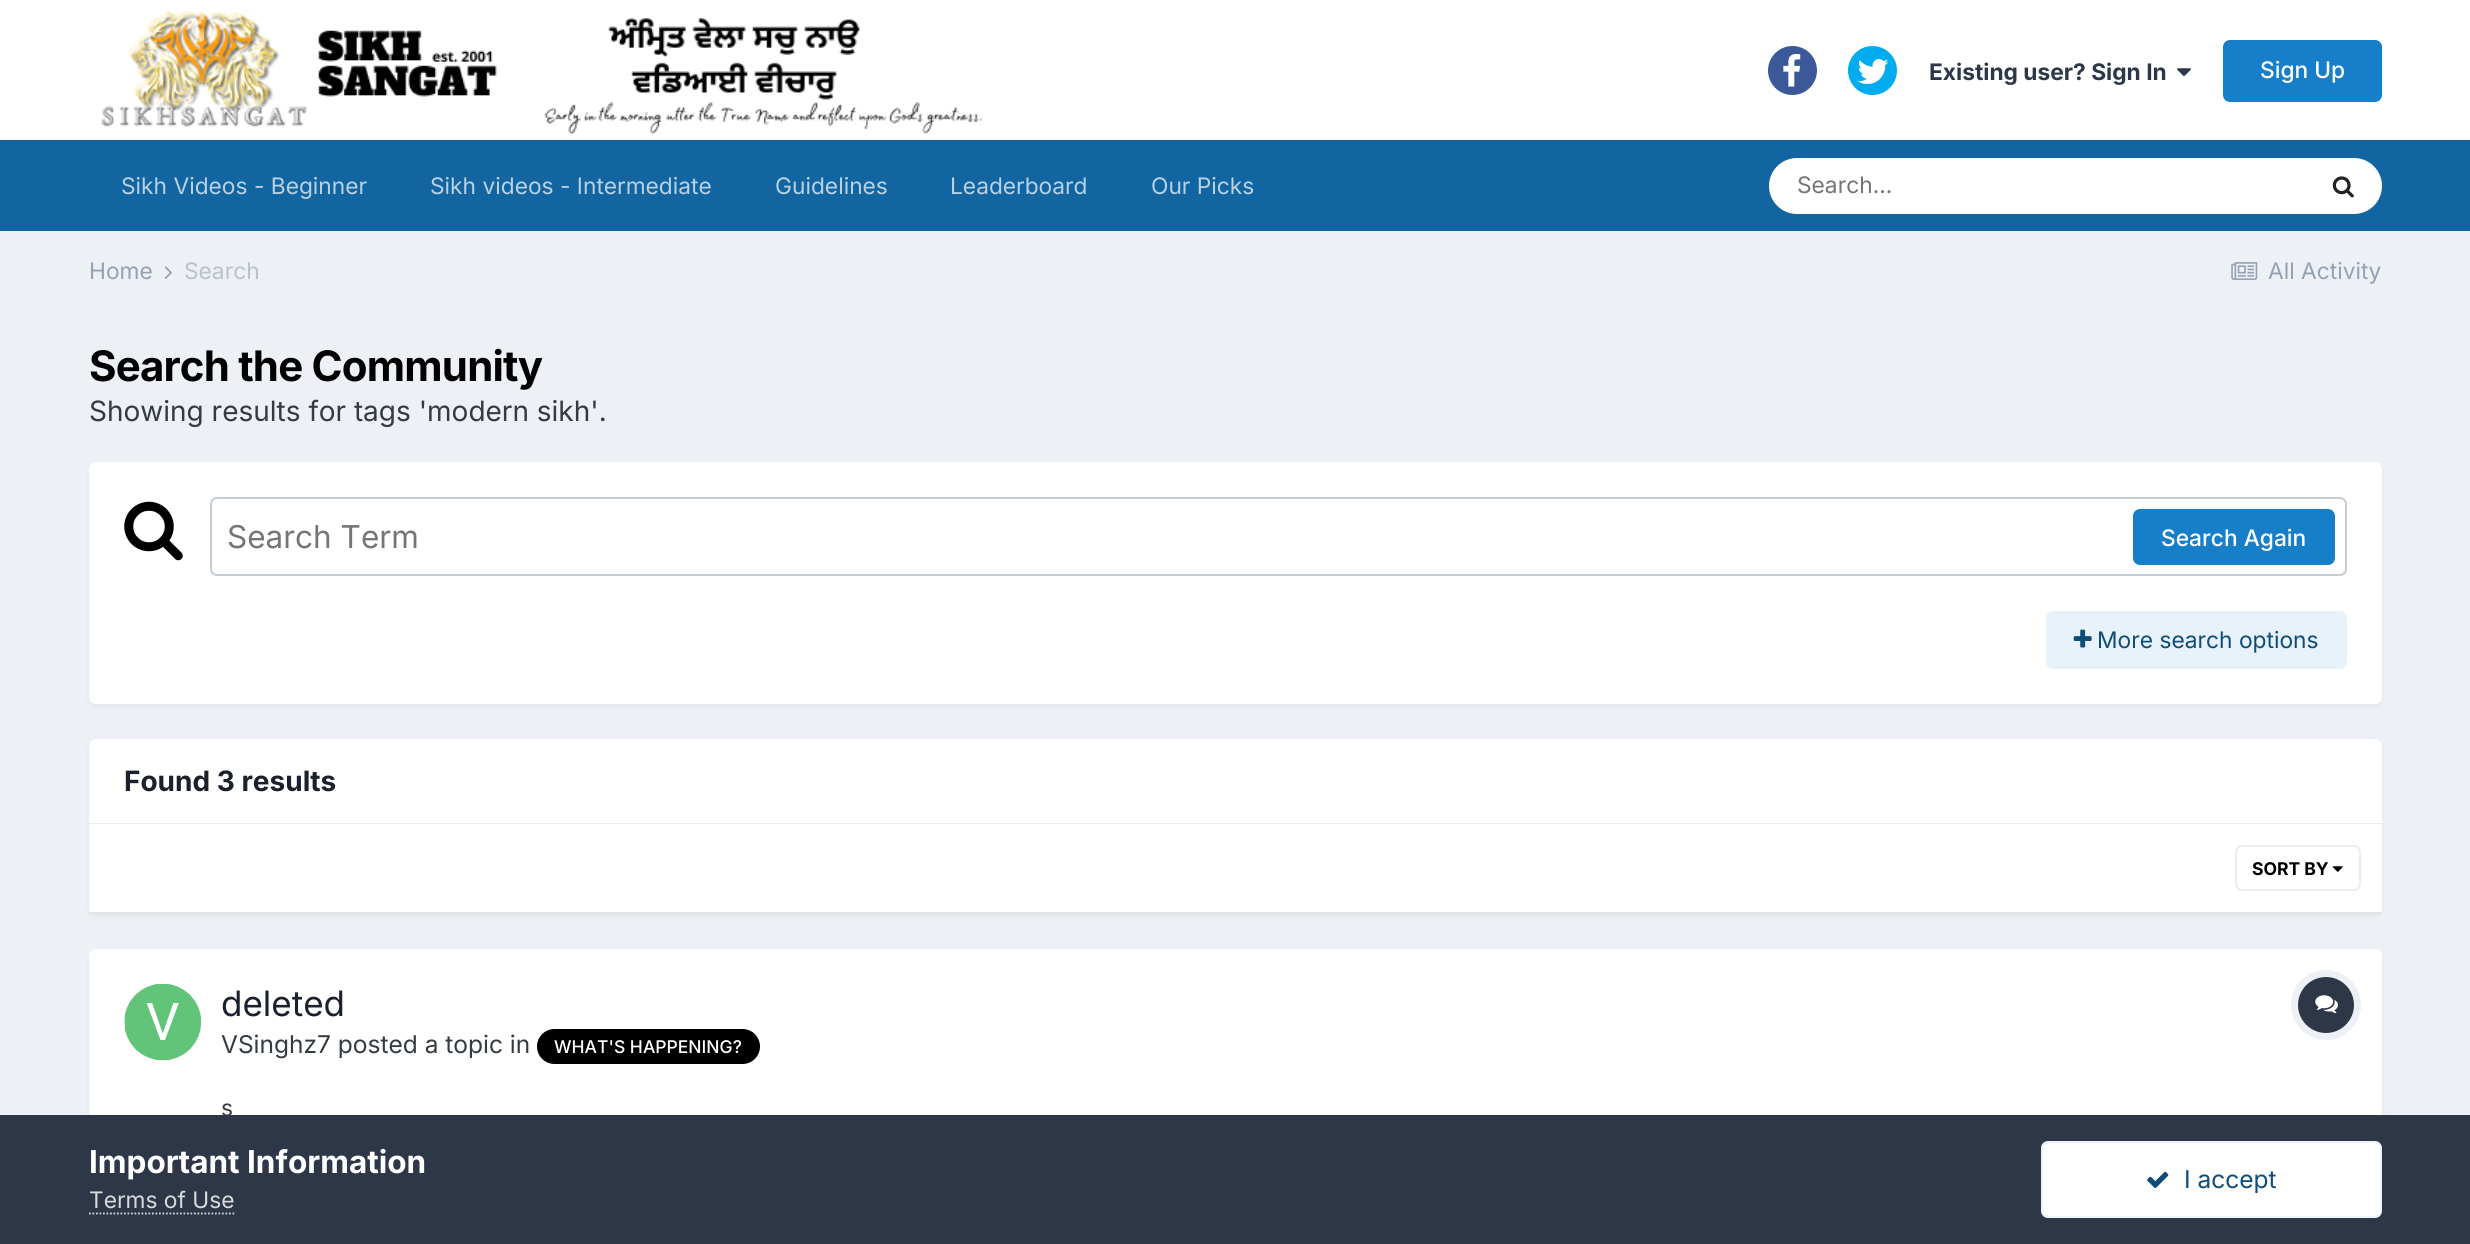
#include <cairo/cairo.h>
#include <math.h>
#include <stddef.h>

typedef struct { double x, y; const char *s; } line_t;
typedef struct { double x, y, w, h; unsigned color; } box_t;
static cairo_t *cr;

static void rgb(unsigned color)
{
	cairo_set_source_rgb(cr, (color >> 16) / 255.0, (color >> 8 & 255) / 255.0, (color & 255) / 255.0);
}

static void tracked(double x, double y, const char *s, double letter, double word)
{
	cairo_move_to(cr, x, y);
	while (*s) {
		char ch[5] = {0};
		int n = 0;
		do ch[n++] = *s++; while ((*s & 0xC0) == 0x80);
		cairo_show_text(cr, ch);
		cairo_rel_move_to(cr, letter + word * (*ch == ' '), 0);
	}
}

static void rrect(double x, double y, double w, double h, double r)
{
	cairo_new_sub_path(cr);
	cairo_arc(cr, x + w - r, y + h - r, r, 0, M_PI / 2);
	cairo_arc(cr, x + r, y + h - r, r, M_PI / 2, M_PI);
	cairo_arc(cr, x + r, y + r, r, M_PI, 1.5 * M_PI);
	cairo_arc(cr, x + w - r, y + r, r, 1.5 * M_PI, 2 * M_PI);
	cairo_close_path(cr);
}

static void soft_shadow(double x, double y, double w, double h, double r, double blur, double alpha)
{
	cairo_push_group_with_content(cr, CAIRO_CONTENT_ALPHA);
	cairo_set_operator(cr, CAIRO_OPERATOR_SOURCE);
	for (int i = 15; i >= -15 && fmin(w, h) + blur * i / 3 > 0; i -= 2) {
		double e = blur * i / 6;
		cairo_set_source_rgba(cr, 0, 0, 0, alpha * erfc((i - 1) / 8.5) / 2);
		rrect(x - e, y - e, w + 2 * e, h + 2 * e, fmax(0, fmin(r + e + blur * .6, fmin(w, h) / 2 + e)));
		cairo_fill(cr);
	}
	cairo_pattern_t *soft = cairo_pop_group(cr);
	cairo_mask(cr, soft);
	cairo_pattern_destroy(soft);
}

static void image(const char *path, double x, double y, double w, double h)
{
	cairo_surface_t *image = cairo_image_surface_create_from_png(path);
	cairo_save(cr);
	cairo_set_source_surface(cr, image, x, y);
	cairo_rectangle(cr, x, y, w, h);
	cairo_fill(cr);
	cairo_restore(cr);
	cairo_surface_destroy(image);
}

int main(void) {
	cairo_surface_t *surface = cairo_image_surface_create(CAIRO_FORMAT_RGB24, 2470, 1244);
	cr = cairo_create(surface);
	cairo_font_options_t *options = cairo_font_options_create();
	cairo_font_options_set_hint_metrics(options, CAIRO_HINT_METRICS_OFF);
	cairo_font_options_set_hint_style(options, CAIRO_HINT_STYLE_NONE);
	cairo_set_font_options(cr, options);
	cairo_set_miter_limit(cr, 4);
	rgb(0xedf0f4);
	cairo_paint(cr);
	rgb(0xffffff);
	cairo_rectangle(cr, 0, 0, 2470, 140);
	cairo_fill(cr);
	image("img/1.png", 101, 11, 882, 124);
	rgb(0x3b5998);
	cairo_arc(cr, 1792.5, 70.5, 24.5, 0, 2 * M_PI);
	cairo_fill(cr);
	image("img/2.png", 1783, 54, 18, 33);
	rgb(0x00aced);
	cairo_arc(cr, 1872.5, 70.5, 24.5, 0, 2 * M_PI);
	cairo_fill(cr);
	image("img/3.png", 1857, 59, 32, 25);
	image("img/4.png", 2177, 68, 14, 8);
	rgb(0x177ec9);
	rrect(2223, 40, 159, 62, 7);
	cairo_fill(cr);
	rgb(0x1265a1);
	cairo_rectangle(cr, 0, 140, 2470, 91);
	cairo_fill(cr);
	rgb(0xffffff);
	rrect(1769, 158, 613, 56, 28);
	cairo_fill(cr);
	image("img/5.png", 2332, 176, 22, 22);
	image("img/6.png", 164, 266, 8, 13);
	image("img/7.png", 2231, 262, 27, 18);
	rgb(0x2d3748);
	soft_shadow(91, 467, 2289, 238, 5, 3.5, 0.1);
	rgb(0xffffff);
	rrect(89, 462, 2293, 242, 7);
	cairo_fill(cr);
	image("img/8.png", 124, 501, 59, 60);
	rrect(211, 498, 2135, 77, 6);
	rgb(0xc6ccd5);
	cairo_stroke(cr);
	rgb(0x177ec9);
	rrect(2133, 509, 202, 56, 7);
	cairo_fill(cr);
	rgb(0xe8f2fa);
	rrect(2046, 611, 301, 58, 7);
	cairo_fill(cr);
	image("img/9.png", 2073, 629, 19, 19);
	rgb(0x2d3748);
	soft_shadow(91, 744, 2289, 171, 5, 3.5, 0.1);
	rgb(0xffffff);
	cairo_new_path(cr);
	cairo_move_to(cr, 96, 739);
	cairo_line_to(cr, 2375, 739);
	cairo_curve_to(cr, 2379, 739, 2382, 742, 2382, 746);
	cairo_line_to(cr, 2382, 824);
	cairo_line_to(cr, 89, 824);
	cairo_line_to(cr, 89, 746);
	cairo_curve_to(cr, 89, 742, 92, 739, 96, 739);
	cairo_close_path(cr);
	cairo_fill(cr);
	{
		static const box_t items[] = {
			{89, 823, 2293, 1, 0xeaecef},
			{89, 824, 2293, 88, 0xffffff},
			{89, 912, 2293, 2, 0xe1e2e3},
		};
		for (size_t i = 0; i < sizeof items / sizeof *items; i++) {
			rgb(items[i].color);
			cairo_rectangle(cr, items[i].x, items[i].y, items[i].w, items[i].h);
			cairo_fill(cr);
		}
	}
	image("img/10.png", 2332, 866, 11, 6);
	rrect(2236, 846, 124, 44, 6);
	rgb(0xebecec);
	cairo_stroke(cr);
	rgb(0x2d3748);
	soft_shadow(91, 954, 2289, 271, 5, 3.5, 0.1);
	rgb(0xffffff);
	rrect(89, 949, 2293, 274, 7);
	cairo_fill(cr);
	image("img/11.png", 124, 984, 77, 77);
	rgb(0x000000);
	rrect(537, 1029, 223, 35, 17.5);
	cairo_fill(cr);
	cairo_arc(cr, 2326, 1005, 31.5, 0, 2 * M_PI);
	rgb(0xedf0f4);
	cairo_set_line_width(cr, 7);
	cairo_stroke(cr);
	rgb(0x2d3748);
	cairo_arc(cr, 2326, 1005, 28, 0, 2 * M_PI);
	cairo_fill(cr);
	image("img/12.png", 2315, 995, 23, 19);
	cairo_select_font_face(cr, "Inter", CAIRO_FONT_SLANT_NORMAL, CAIRO_FONT_WEIGHT_BOLD);
	cairo_set_font_size(cr, 22.75);
	cairo_move_to(cr, 1929, 80);
	cairo_show_text(cr, "Existing user? Sign In");
	cairo_select_font_face(cr, "Inter Medium", CAIRO_FONT_SLANT_NORMAL, CAIRO_FONT_WEIGHT_NORMAL);
	rgb(0xffffff);
	cairo_move_to(cr, 2260, 78);
	cairo_show_text(cr, "Sign Up");
	cairo_select_font_face(cr, "Inter", CAIRO_FONT_SLANT_NORMAL, CAIRO_FONT_WEIGHT_NORMAL);
	rgb(0xb8d1e3);
	{
		static const line_t items[] = {
			{121, 194, "Sikh Videos - Beginner"},
			{430, 194, "Sikh videos - Intermediate"},
			{775, 194, "Guidelines"},
			{950, 194, "Leaderboard"},
			{1151, 194, "Our Picks"},
		};
		for (size_t i = 0; i < sizeof items / sizeof *items; i++) {
			cairo_move_to(cr, items[i].x, items[i].y);
			cairo_show_text(cr, items[i].s);
		}
	}
	rgb(0x757575);
	cairo_move_to(cr, 1797, 193);
	cairo_show_text(cr, "Search...");
	rgb(0x96a2b2);
	cairo_move_to(cr, 89, 279);
	cairo_show_text(cr, "Home");
	rgb(0xb9c1cd);
	cairo_move_to(cr, 184, 279);
	cairo_show_text(cr, "Search");
	rgb(0x96a2b2);
	cairo_move_to(cr, 2268, 279);
	cairo_show_text(cr, "All Activity");
	cairo_select_font_face(cr, "Inter", CAIRO_FONT_SLANT_NORMAL, CAIRO_FONT_WEIGHT_BOLD);
	cairo_set_font_size(cr, 42);
	rgb(0x000000);
	tracked(89, 381, "Search the Community", -0.8, 0);
	cairo_select_font_face(cr, "Inter", CAIRO_FONT_SLANT_NORMAL, CAIRO_FONT_WEIGHT_NORMAL);
	cairo_set_font_size(cr, 28);
	rgb(0x353c41);
	cairo_move_to(cr, 89, 421);
	cairo_show_text(cr, "Showing results for tags 'modern sikh'.");
	cairo_set_font_size(cr, 31.5);
	rgb(0x757575);
	cairo_move_to(cr, 227, 548);
	cairo_show_text(cr, "Search Term");
	cairo_select_font_face(cr, "Inter Medium", CAIRO_FONT_SLANT_NORMAL, CAIRO_FONT_WEIGHT_NORMAL);
	cairo_set_font_size(cr, 22.75);
	rgb(0xffffff);
	cairo_move_to(cr, 2161, 546);
	cairo_show_text(cr, "Search Again");
	cairo_select_font_face(cr, "Inter", CAIRO_FONT_SLANT_NORMAL, CAIRO_FONT_WEIGHT_NORMAL);
	rgb(0x0e4c79);
	cairo_move_to(cr, 2097, 648);
	cairo_show_text(cr, "More search options");
	cairo_select_font_face(cr, "Inter", CAIRO_FONT_SLANT_NORMAL, CAIRO_FONT_WEIGHT_BOLD);
	cairo_set_font_size(cr, 28);
	rgb(0x1a202c);
	cairo_move_to(cr, 124, 791);
	cairo_show_text(cr, "Found 3 results");
	cairo_set_font_size(cr, 17.5);
	rgb(0x000000);
	cairo_move_to(cr, 2252, 875);
	cairo_show_text(cr, "SORT BY");
	cairo_select_font_face(cr, "Inter", CAIRO_FONT_SLANT_NORMAL, CAIRO_FONT_WEIGHT_NORMAL);
	cairo_set_font_size(cr, 35);
	rgb(0x1a202c);
	cairo_move_to(cr, 221, 1016);
	cairo_show_text(cr, "deleted");
	cairo_set_font_size(cr, 24.5);
	rgb(0x353c41);
	cairo_move_to(cr, 221, 1053);
	cairo_show_text(cr, "VSinghz7 posted a topic in");
	cairo_select_font_face(cr, "Inter Medium", CAIRO_FONT_SLANT_NORMAL, CAIRO_FONT_WEIGHT_NORMAL);
	cairo_set_font_size(cr, 17.5);
	rgb(0xffffff);
	cairo_move_to(cr, 554, 1053);
	cairo_show_text(cr, "WHAT'S HAPPENING?");
	cairo_select_font_face(cr, "Inter", CAIRO_FONT_SLANT_NORMAL, CAIRO_FONT_WEIGHT_NORMAL);
	cairo_set_font_size(cr, 22.75);
	rgb(0x353c41);
	cairo_move_to(cr, 221, 1116);
	cairo_show_text(cr, "s");
	rgb(0x2d3748);
	cairo_rectangle(cr, 0, 1115, 2470, 129);
	cairo_fill(cr);
	cairo_select_font_face(cr, "Inter", CAIRO_FONT_SLANT_NORMAL, CAIRO_FONT_WEIGHT_BOLD);
	cairo_set_font_size(cr, 31.5);
	rgb(0xffffff);
	cairo_move_to(cr, 89, 1173);
	cairo_show_text(cr, "Important Information");
	cairo_select_font_face(cr, "Inter", CAIRO_FONT_SLANT_NORMAL, CAIRO_FONT_WEIGHT_NORMAL);
	cairo_set_font_size(cr, 22.75);
	rgb(0xdadada);
	cairo_move_to(cr, 89, 1208);
	cairo_show_text(cr, "Terms of Use");
	cairo_new_path(cr);
	cairo_move_to(cr, 89, 1213.5);
	cairo_line_to(cr, 234.5, 1213.5);
	cairo_set_line_width(cr, 1.8);
	cairo_set_dash(cr, (double[]){1.75, 1.75}, 2, 0);
	cairo_stroke(cr);
	rgb(0xffffff);
	rrect(2041, 1141, 341, 77, 7);
	cairo_fill(cr);
	rrect(2042, 1142, 339, 75, 6);
	cairo_set_source_rgba(cr, 0.055, 0.298, 0.475, 0.07);
	cairo_set_line_width(cr, 2);
	cairo_set_dash(cr, NULL, 0, 0);
	cairo_stroke(cr);
	image("img/13.png", 2147, 1171, 22, 17);
	cairo_set_font_size(cr, 24.5);
	rgb(0x0e4c79);
	cairo_move_to(cr, 2184, 1188);
	cairo_show_text(cr, "I accept");
	cairo_surface_write_to_png(surface, "page.png");
	cairo_font_options_destroy(options);
	cairo_destroy(cr);
	cairo_surface_destroy(surface);
	return 0;
}
